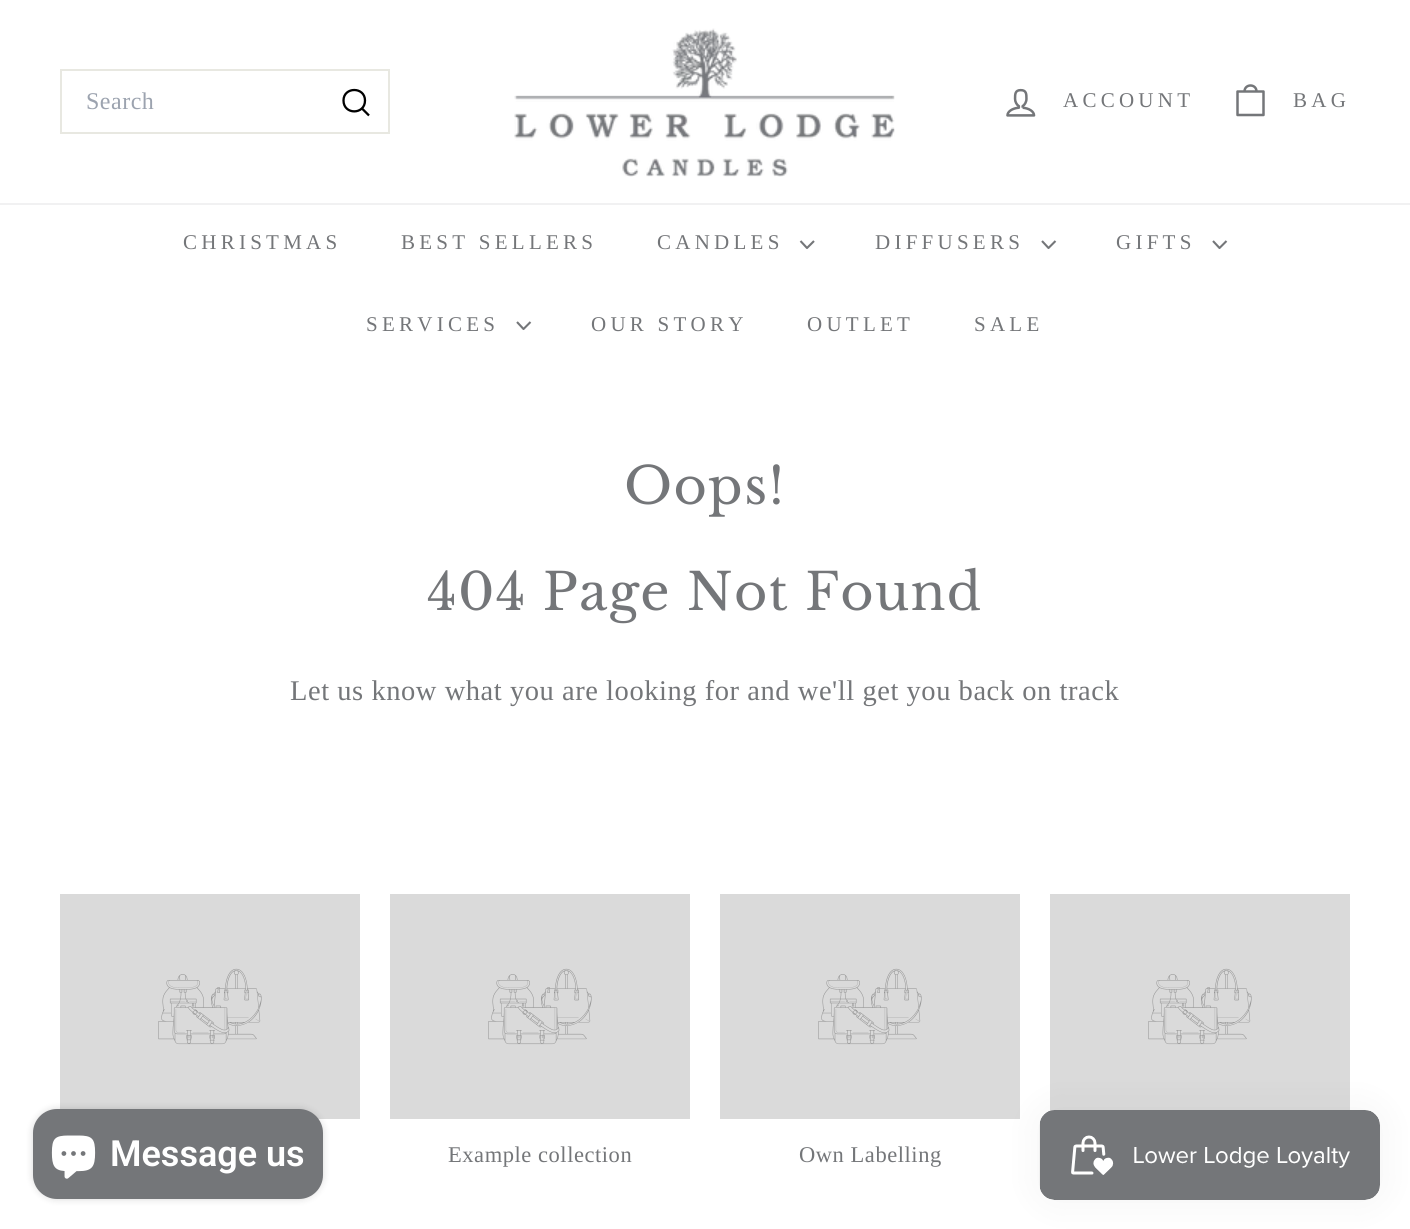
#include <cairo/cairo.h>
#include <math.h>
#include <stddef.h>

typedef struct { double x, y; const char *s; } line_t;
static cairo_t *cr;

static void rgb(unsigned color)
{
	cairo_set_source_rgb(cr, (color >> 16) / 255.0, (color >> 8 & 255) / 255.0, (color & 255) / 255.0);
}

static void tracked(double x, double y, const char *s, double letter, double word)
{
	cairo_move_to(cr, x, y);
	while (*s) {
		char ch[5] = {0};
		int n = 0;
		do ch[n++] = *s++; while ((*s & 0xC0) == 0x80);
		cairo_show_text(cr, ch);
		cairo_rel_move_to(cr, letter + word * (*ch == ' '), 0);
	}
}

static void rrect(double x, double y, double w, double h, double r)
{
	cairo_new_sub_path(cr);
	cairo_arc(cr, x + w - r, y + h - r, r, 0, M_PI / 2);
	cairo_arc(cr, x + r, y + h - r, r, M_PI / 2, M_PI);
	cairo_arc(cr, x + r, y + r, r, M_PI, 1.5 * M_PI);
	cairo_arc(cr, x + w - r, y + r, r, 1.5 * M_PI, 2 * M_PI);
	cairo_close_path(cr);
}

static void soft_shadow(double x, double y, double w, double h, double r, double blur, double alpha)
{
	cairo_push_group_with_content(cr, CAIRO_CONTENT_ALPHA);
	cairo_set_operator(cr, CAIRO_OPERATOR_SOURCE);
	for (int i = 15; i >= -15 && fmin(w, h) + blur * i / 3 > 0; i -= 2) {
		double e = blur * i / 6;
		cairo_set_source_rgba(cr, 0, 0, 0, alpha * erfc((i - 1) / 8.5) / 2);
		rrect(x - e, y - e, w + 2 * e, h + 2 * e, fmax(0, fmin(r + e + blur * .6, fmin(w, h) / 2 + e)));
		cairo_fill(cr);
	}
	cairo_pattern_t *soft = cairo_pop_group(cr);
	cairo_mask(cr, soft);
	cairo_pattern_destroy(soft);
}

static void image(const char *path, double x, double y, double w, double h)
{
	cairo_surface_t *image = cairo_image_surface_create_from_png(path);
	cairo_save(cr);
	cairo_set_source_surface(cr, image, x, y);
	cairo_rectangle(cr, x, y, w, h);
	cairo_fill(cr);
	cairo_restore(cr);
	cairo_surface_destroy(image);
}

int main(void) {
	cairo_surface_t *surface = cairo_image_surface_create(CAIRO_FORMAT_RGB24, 1410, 1229);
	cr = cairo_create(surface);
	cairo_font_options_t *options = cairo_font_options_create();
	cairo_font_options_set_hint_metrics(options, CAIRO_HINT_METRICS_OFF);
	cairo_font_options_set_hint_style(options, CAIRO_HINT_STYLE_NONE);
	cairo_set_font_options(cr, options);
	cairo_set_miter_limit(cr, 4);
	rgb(0xffffff);
	cairo_paint(cr);
	cairo_rectangle(cr, 61, 70, 328, 63);
	rgb(0xe8e8e1);
	cairo_stroke(cr);
	cairo_new_path(cr);
	cairo_move_to(cr, 365, 100.5);
	cairo_curve_to(cr, 365, 115, 343.5, 115, 343.5, 100.5);
	cairo_curve_to(cr, 343.5, 86.5, 365, 86.5, 365, 100.5);
	cairo_move_to(cr, 369, 115.5);
	cairo_line_to(cr, 362, 108.5);
	rgb(0x000000);
	cairo_set_line_width(cr, 2.3);
	cairo_set_line_join(cr, CAIRO_LINE_JOIN_ROUND);
	cairo_stroke(cr);
	image("img/1.png", 514, 28, 381, 149);
	image("img/2.png", 1006, 88, 30, 29);
	cairo_new_path(cr);
	cairo_move_to(cr, 1244.5, 91.5);
	cairo_curve_to(cr, 1244.5, 83.5, 1256.5, 83.5, 1256.5, 91.5);
	cairo_move_to(cr, 1237.5, 91.5);
	cairo_line_to(cr, 1263.5, 91.5);
	cairo_line_to(cr, 1263.5, 115);
	cairo_line_to(cr, 1237.5, 115);
	cairo_close_path(cr);
	rgb(0x747679);
	cairo_set_line_width(cr, 2.5);
	cairo_stroke(cr);
	rgb(0xf1f1f2);
	cairo_rectangle(cr, 0, 203, 1410, 2);
	cairo_fill(cr);
	cairo_new_path(cr);
	cairo_move_to(cr, 800.5, 241);
	cairo_line_to(cr, 807, 248);
	cairo_line_to(cr, 814, 241);
	rgb(0x747679);
	cairo_set_line_width(cr, 2.1);
	cairo_stroke(cr);
	cairo_new_path(cr);
	cairo_move_to(cr, 1042, 241);
	cairo_line_to(cr, 1048.5, 248);
	cairo_line_to(cr, 1055.5, 241);
	cairo_stroke(cr);
	cairo_new_path(cr);
	cairo_move_to(cr, 1213, 241);
	cairo_line_to(cr, 1219.5, 248);
	cairo_line_to(cr, 1226.5, 241);
	cairo_stroke(cr);
	cairo_new_path(cr);
	cairo_move_to(cr, 517, 322);
	cairo_line_to(cr, 523.5, 329);
	cairo_line_to(cr, 530.5, 322);
	cairo_stroke(cr);
	rgb(0xdadada);
	cairo_rectangle(cr, 60, 894, 300, 225);
	cairo_fill(cr);
	image("img/3.png", 158, 968, 104, 77);
	cairo_rectangle(cr, 1050, 894, 300, 217);
	cairo_fill(cr);
	image("img/3.png", 1148, 968, 104, 77);
	cairo_rectangle(cr, 390, 894, 300, 225);
	cairo_fill(cr);
	image("img/3.png", 488, 968, 104, 77);
	cairo_rectangle(cr, 720, 894, 300, 225);
	cairo_fill(cr);
	image("img/3.png", 818, 968, 104, 77);
	rgb(0x000000);
	soft_shadow(33, 1109, 290, 90, 24, 4, 0.15);
	rgb(0x747679);
	rrect(33, 1109, 290, 90, 24);
	cairo_fill(cr);
	image("img/4.png", 51, 1135, 45, 44);
	rgb(0x000000);
	soft_shadow(1040, 1110, 340, 90, 15, 19, 0.05);
	image("img/5.png", 1039, 1110, 341, 90);
	cairo_select_font_face(cr, "Liberation Serif", CAIRO_FONT_SLANT_NORMAL, CAIRO_FONT_WEIGHT_NORMAL);
	cairo_set_font_size(cr, 24);
	rgb(0x9ca3af);
	tracked(86, 109, "Search", 0.5, 0);
	cairo_set_font_size(cr, 21);
	rgb(0x747679);
	{
		static const line_t items[] = {
			{1063, 107, "ACCOUNT"},
			{1293, 107, "BAG"},
			{183, 249, "CHRISTMAS"},
			{401, 249, "BEST SELLERS"},
			{657, 249, "CANDLES"},
			{875, 249, "DIFFUSERS"},
			{1116, 249, "GIFTS"},
			{366, 331, "SERVICES"},
			{591, 331, "OUR STORY"},
			{807, 331, "OUTLET"},
			{974, 331, "SALE"},
		};
		for (size_t i = 0; i < sizeof items / sizeof *items; i++) {
			tracked(items[i].x, items[i].y, items[i].s, 4.25, 0);
		}
	}
	cairo_select_font_face(cr, "Libre Baskerville", CAIRO_FONT_SLANT_NORMAL, CAIRO_FONT_WEIGHT_NORMAL);
	cairo_set_font_size(cr, 51);
	tracked(624, 504, "Oops!", 1.25, 0);
	tracked(427, 610, "404 Page Not Found", 1.25, 0);
	cairo_select_font_face(cr, "Liberation Serif", CAIRO_FONT_SLANT_NORMAL, CAIRO_FONT_WEIGHT_NORMAL);
	cairo_set_font_size(cr, 28.5);
	tracked(290, 700, "Let us know what you are looking for and we'll get you back on track", 0.55, 0);
	cairo_set_font_size(cr, 22.5);
	tracked(448, 1162, "Example collection", 0.55, 0);
	tracked(799, 1162, "Own Labelling", 0.55, 0);
	cairo_select_font_face(cr, "Roboto SemiBold", CAIRO_FONT_SLANT_NORMAL, CAIRO_FONT_WEIGHT_NORMAL);
	cairo_set_font_size(cr, 36);
	rgb(0xffffff);
	cairo_move_to(cr, 110, 1166);
	cairo_show_text(cr, "Message us");
	cairo_surface_write_to_png(surface, "page.png");
	cairo_font_options_destroy(options);
	cairo_destroy(cr);
	cairo_surface_destroy(surface);
	return 0;
}
